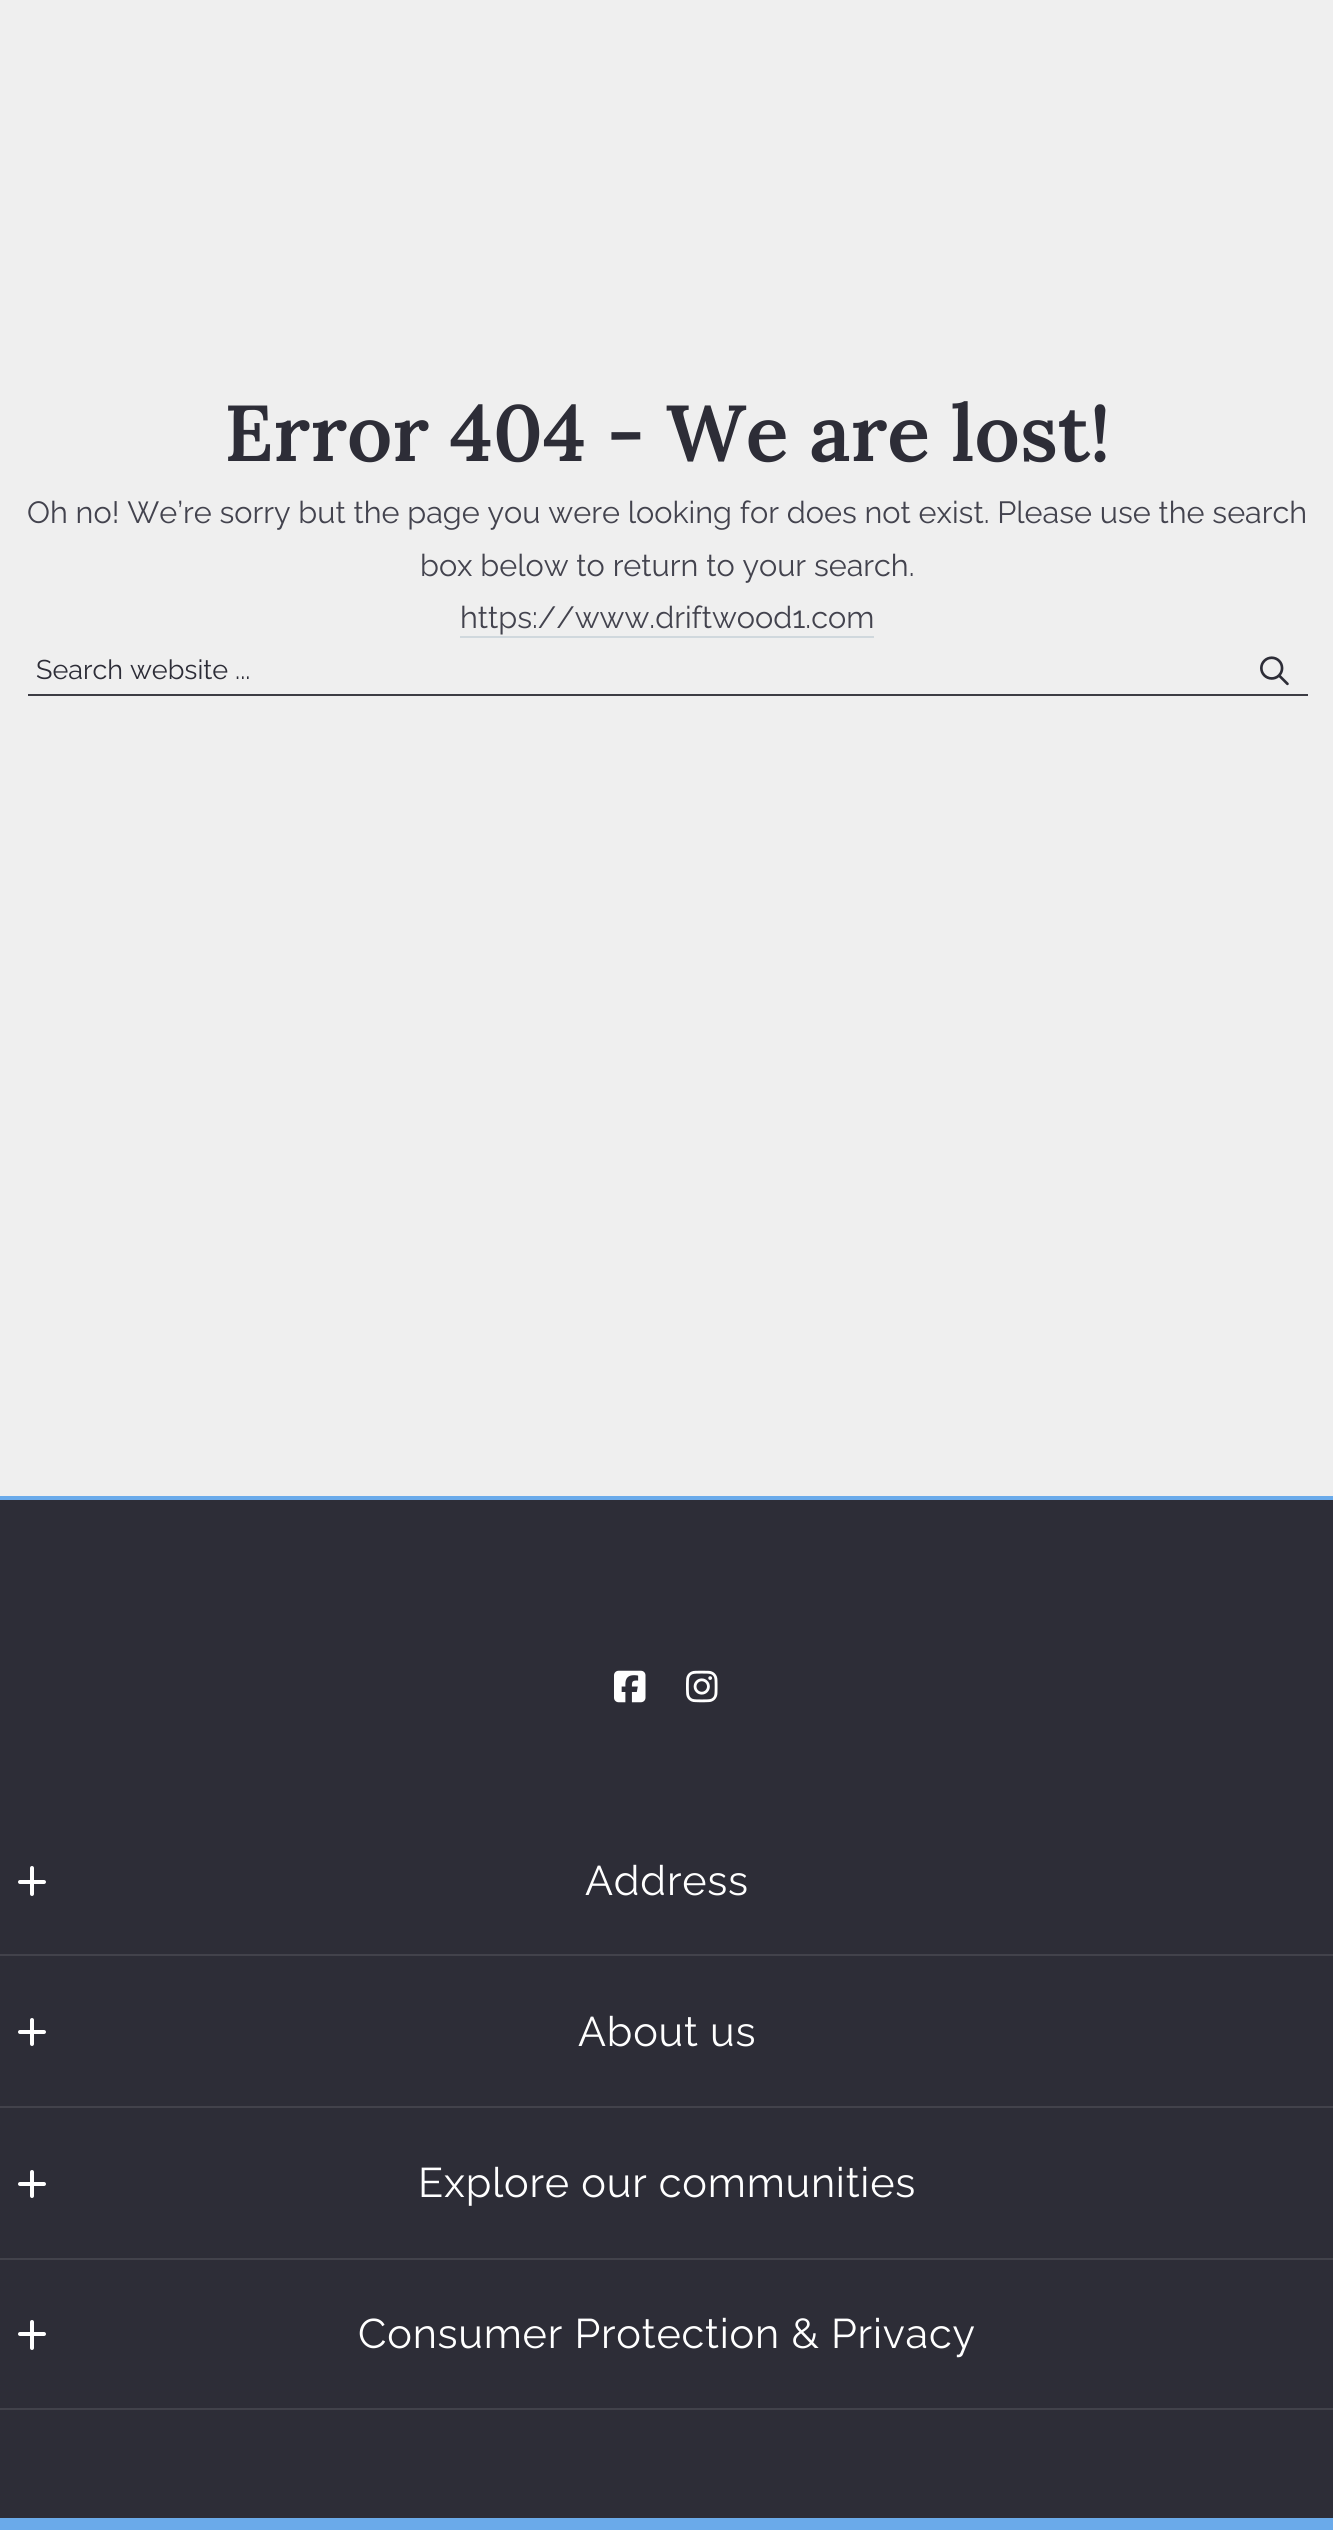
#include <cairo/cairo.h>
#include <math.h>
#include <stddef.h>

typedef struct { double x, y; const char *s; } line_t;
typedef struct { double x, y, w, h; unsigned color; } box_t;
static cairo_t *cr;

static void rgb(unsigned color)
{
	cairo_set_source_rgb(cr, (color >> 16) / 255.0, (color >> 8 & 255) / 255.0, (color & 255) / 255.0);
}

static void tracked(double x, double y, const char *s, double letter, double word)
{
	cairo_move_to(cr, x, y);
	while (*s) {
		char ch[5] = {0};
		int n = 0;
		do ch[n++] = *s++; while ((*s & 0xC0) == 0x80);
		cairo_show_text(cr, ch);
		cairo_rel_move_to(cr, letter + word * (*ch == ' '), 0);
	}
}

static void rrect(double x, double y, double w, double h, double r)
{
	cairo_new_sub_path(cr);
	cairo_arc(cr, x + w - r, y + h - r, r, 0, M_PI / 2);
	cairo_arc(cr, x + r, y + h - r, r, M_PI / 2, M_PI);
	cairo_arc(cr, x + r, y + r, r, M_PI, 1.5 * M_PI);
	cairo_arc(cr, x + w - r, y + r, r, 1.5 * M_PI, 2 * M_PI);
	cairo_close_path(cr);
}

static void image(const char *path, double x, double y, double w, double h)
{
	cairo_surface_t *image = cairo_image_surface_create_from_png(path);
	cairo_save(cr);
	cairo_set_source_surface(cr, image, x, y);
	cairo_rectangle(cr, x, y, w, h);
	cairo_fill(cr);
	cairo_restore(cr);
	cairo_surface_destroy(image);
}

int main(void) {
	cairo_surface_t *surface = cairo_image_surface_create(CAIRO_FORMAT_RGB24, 1333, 2530);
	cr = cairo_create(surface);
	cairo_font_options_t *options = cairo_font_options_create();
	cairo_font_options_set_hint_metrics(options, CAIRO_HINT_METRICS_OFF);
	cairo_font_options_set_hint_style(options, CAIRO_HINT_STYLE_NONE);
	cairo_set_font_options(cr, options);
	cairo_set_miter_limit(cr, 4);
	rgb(0x2d2d37);
	cairo_paint(cr);
	{
		static const box_t items[] = {
			{0, 0, 1333, 1496, 0xefefef},
			{460, 636, 414, 2, 0xd0d8dd},
			{28, 694, 1280, 2, 0x3c3c44},
		};
		for (size_t i = 0; i < sizeof items / sizeof *items; i++) {
			rgb(items[i].color);
			cairo_rectangle(cr, items[i].x, items[i].y, items[i].w, items[i].h);
			cairo_fill(cr);
		}
	}
	image("img/1.png", 1260, 656, 29, 30);
	rgb(0x6aaaea);
	cairo_rectangle(cr, 0, 1496, 1333, 4);
	cairo_fill(cr);
	image("img/2.png", 614, 1670, 32, 33);
	image("img/3.png", 686, 1670, 32, 33);
	rgb(0xffffff);
	rrect(18, 1880, 28, 4, 2);
	cairo_fill(cr);
	rrect(30, 1866, 4, 30, 2);
	cairo_fill(cr);
	rgb(0x42424b);
	cairo_rectangle(cr, 0, 1954, 1333, 2);
	cairo_fill(cr);
	rgb(0xffffff);
	rrect(18, 2030, 28, 4, 2);
	cairo_fill(cr);
	rrect(30, 2018, 4, 28, 2);
	cairo_fill(cr);
	rgb(0x42424b);
	cairo_rectangle(cr, 0, 2106, 1333, 2);
	cairo_fill(cr);
	rgb(0xffffff);
	rrect(18, 2182, 28, 4, 2);
	cairo_fill(cr);
	rrect(30, 2170, 4, 28, 2);
	cairo_fill(cr);
	rgb(0x42424b);
	cairo_rectangle(cr, 0, 2258, 1333, 2);
	cairo_fill(cr);
	rgb(0xffffff);
	rrect(18, 2332, 28, 4, 2);
	cairo_fill(cr);
	rrect(30, 2320, 4, 30, 2);
	cairo_fill(cr);
	rgb(0x42424b);
	cairo_rectangle(cr, 0, 2408, 1333, 2);
	cairo_fill(cr);
	rgb(0x6aaaea);
	cairo_rectangle(cr, 0, 2518, 1333, 12);
	cairo_fill(cr);
	cairo_select_font_face(cr, "Lora SemiBold", CAIRO_FONT_SLANT_NORMAL, CAIRO_FONT_WEIGHT_NORMAL);
	cairo_set_font_size(cr, 79.25);
	rgb(0x2d2d37);
	cairo_move_to(cr, 224, 461);
	cairo_show_text(cr, "Error 404 - We are lost!");
	cairo_select_font_face(cr, "Raleway", CAIRO_FONT_SLANT_NORMAL, CAIRO_FONT_WEIGHT_NORMAL);
	cairo_set_font_size(cr, 30.6);
	rgb(0x43434e);
	{
		static const line_t items[] = {
			{27, 523, "Oh no! We’re sorry but the page you were looking for does not exist. Please use the search"},
			{420, 576, "box below to return to your search."},
			{460, 628, "https://www.driftwood1.com"},
		};
		for (size_t i = 0; i < sizeof items / sizeof *items; i++) {
			cairo_move_to(cr, items[i].x, items[i].y);
			cairo_show_text(cr, items[i].s);
		}
	}
	cairo_set_font_size(cr, 27);
	rgb(0x2d2d37);
	cairo_move_to(cr, 36, 679);
	cairo_show_text(cr, "Search website ...");
	cairo_set_font_size(cr, 41.4);
	rgb(0xffffff);
	{
		static const line_t items[] = {
			{585, 1895, "Address"},
			{578, 2046, "About us"},
			{418, 2197, "Explore our communities"},
			{358, 2348, "Consumer Protection & Privacy"},
		};
		for (size_t i = 0; i < sizeof items / sizeof *items; i++) {
			tracked(items[i].x, items[i].y, items[i].s, 0.8, 0);
		}
	}
	cairo_surface_write_to_png(surface, "page.png");
	cairo_font_options_destroy(options);
	cairo_destroy(cr);
	cairo_surface_destroy(surface);
	return 0;
}
